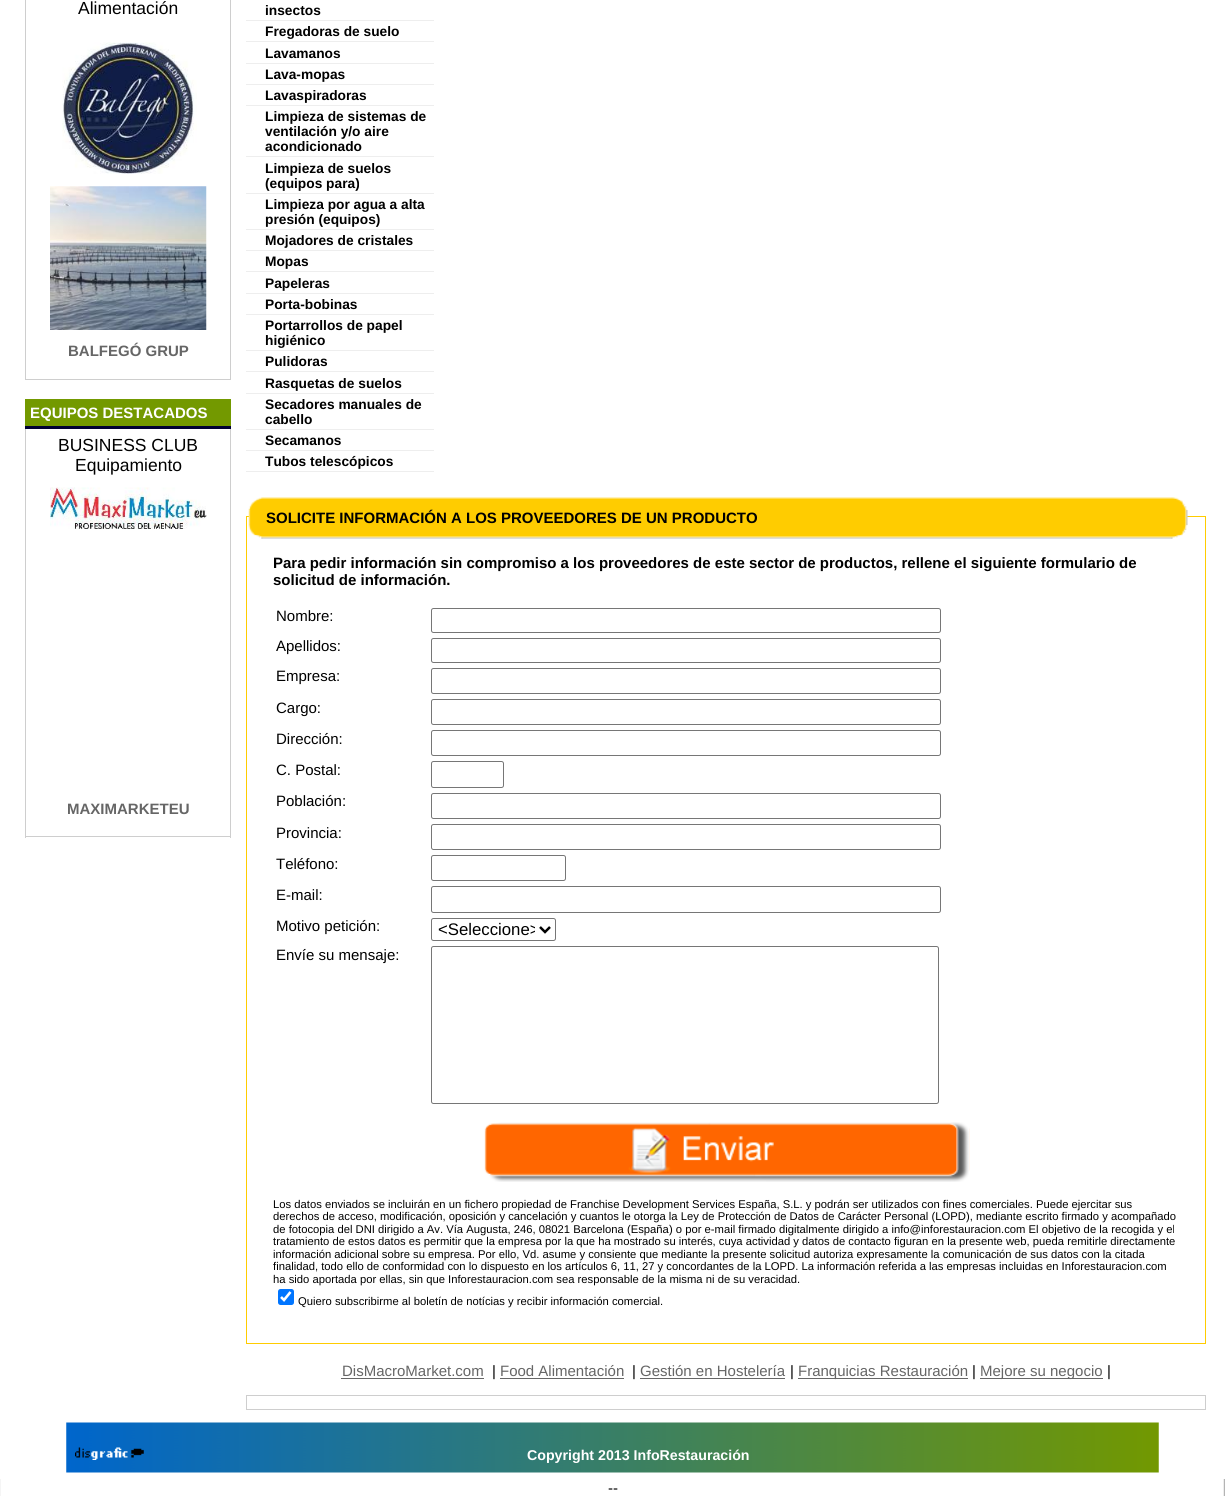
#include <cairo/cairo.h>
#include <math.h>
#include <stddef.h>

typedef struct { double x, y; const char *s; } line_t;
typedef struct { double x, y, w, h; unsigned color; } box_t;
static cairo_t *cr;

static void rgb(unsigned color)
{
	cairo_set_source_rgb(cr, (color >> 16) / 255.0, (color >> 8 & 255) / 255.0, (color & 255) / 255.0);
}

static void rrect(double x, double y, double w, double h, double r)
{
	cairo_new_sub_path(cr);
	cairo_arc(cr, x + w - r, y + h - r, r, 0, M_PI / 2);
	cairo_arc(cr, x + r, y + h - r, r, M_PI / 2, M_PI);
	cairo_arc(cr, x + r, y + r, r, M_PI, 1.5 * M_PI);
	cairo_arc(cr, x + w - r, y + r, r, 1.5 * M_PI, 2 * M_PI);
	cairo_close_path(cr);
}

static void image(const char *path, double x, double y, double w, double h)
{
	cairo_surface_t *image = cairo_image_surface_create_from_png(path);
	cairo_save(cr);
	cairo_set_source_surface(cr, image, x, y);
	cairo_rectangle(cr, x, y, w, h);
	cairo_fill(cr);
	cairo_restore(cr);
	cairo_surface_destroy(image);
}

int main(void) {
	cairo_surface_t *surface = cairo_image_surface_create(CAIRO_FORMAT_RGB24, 1225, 1496);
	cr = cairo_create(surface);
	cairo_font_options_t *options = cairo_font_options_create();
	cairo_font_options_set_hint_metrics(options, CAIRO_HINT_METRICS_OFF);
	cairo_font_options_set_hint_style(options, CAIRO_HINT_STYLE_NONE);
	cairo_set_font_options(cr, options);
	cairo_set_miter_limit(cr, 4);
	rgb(0xffffff);
	cairo_paint(cr);
	image("img/1.png", 0, 1479, 1225, 17);
	{
		static const box_t items[] = {
			{230, 0, 1, 380, 0xcecece},
			{25, 379, 206, 1, 0xcecece},
			{25, 0, 1, 380, 0xcecece},
		};
		for (size_t i = 0; i < sizeof items / sizeof *items; i++) {
			rgb(items[i].color);
			cairo_rectangle(cr, items[i].x, items[i].y, items[i].w, items[i].h);
			cairo_fill(cr);
		}
	}
	image("img/2.png", 62, 42, 135, 132);
	image("img/3.png", 50, 186, 157, 144);
	{
		static const box_t items[] = {
			{25, 399, 206, 27, 0x739900},
			{25, 426, 206, 3, 0x000033},
			{230, 429, 1, 409, 0xcecece},
			{25, 836, 206, 1, 0xcecece},
			{25, 429, 1, 409, 0xcecece},
		};
		for (size_t i = 0; i < sizeof items / sizeof *items; i++) {
			rgb(items[i].color);
			cairo_rectangle(cr, items[i].x, items[i].y, items[i].w, items[i].h);
			cairo_fill(cr);
		}
	}
	image("img/4.png", 50, 487, 157, 42);
	{
		static const box_t items[] = {
			{246, 20, 188, 1, 0xeeeeee},
			{246, 41, 188, 1, 0xeeeeee},
			{246, 63, 188, 1, 0xeeeeee},
			{246, 84, 188, 1, 0xeeeeee},
			{246, 105, 188, 1, 0xeeeeee},
			{246, 156, 188, 1, 0xeeeeee},
			{246, 193, 188, 1, 0xeeeeee},
			{246, 229, 188, 1, 0xeeeeee},
			{246, 250, 188, 1, 0xeeeeee},
			{246, 271, 188, 1, 0xeeeeee},
			{246, 293, 188, 1, 0xeeeeee},
			{246, 314, 188, 1, 0xeeeeee},
			{246, 350, 188, 1, 0xeeeeee},
			{246, 371, 188, 1, 0xeeeeee},
			{246, 393, 188, 1, 0xeeeeee},
			{246, 429, 188, 1, 0xeeeeee},
			{246, 450, 188, 1, 0xeeeeee},
			{246, 471, 188, 1, 0xeeeeee},
		};
		for (size_t i = 0; i < sizeof items / sizeof *items; i++) {
			rgb(items[i].color);
			cairo_rectangle(cr, items[i].x, items[i].y, items[i].w, items[i].h);
			cairo_fill(cr);
		}
	}
	cairo_rectangle(cr, 246.5, 516.5, 959, 827);
	rgb(0xffcc00);
	cairo_set_line_width(cr, 1);
	cairo_stroke(cr);
	image("img/5.png", 248, 497, 940, 42);
	rrect(431.5, 608.5, 509, 24, 2);
	rgb(0x767676);
	cairo_stroke(cr);
	rrect(431.5, 638.5, 509, 24, 2);
	cairo_stroke(cr);
	rrect(431.5, 668.5, 509, 25, 2);
	cairo_stroke(cr);
	rrect(431.5, 699.5, 509, 25, 2);
	cairo_stroke(cr);
	rrect(431.5, 730.5, 509, 25, 2);
	cairo_stroke(cr);
	rrect(431.5, 761.5, 72, 26, 2);
	cairo_stroke(cr);
	rrect(431.5, 793.5, 509, 25, 2);
	cairo_stroke(cr);
	rrect(431.5, 824.5, 509, 25, 2);
	cairo_stroke(cr);
	rrect(431.5, 855.5, 134, 25, 2);
	cairo_stroke(cr);
	rrect(431.5, 886.5, 509, 26, 2);
	cairo_stroke(cr);
	rrect(431.5, 918.5, 124, 22, 2);
	cairo_stroke(cr);
	cairo_new_path(cr);
	cairo_move_to(cr, 540, 927);
	cairo_line_to(cr, 545, 932);
	cairo_line_to(cr, 550, 927);
	rgb(0x000000);
	cairo_set_line_width(cr, 2.5);
	cairo_stroke(cr);
	rrect(431.5, 946.5, 507, 157, 2);
	rgb(0x767676);
	cairo_set_line_width(cr, 1);
	cairo_stroke(cr);
	image("img/6.png", 484, 1122, 486, 60);
	rgb(0x0075ff);
	rrect(278, 1289, 16, 16, 2.5);
	cairo_fill(cr);
	cairo_new_path(cr);
	cairo_move_to(cr, 281, 1297);
	cairo_line_to(cr, 284, 1300);
	cairo_line_to(cr, 290.5, 1292);
	rgb(0xffffff);
	cairo_set_line_width(cr, 2.6);
	cairo_stroke(cr);
	{
		static const box_t items[] = {
			{341, 1378, 143, 1, 0x666666},
			{500, 1378, 124, 1, 0x666666},
			{640, 1378, 145, 1, 0x666666},
			{798, 1378, 170, 1, 0x666666},
			{980, 1378, 123, 1, 0x666666},
		};
		for (size_t i = 0; i < sizeof items / sizeof *items; i++) {
			rgb(items[i].color);
			cairo_rectangle(cr, items[i].x, items[i].y, items[i].w, items[i].h);
			cairo_fill(cr);
		}
	}
	cairo_rectangle(cr, 246.5, 1395.5, 959, 14);
	rgb(0xcecece);
	cairo_set_line_width(cr, 1);
	cairo_stroke(cr);
	image("img/7.png", 66, 1422, 1093, 51);
	image("img/8.png", 75, 1447, 69, 13);
	cairo_select_font_face(cr, "Liberation Sans", CAIRO_FONT_SLANT_NORMAL, CAIRO_FONT_WEIGHT_NORMAL);
	cairo_set_font_size(cr, 17.5);
	rgb(0x000000);
	cairo_move_to(cr, 78, 14);
	cairo_show_text(cr, "Alimentación");
	cairo_select_font_face(cr, "Liberation Sans", CAIRO_FONT_SLANT_NORMAL, CAIRO_FONT_WEIGHT_BOLD);
	cairo_set_font_size(cr, 15);
	rgb(0x666666);
	cairo_move_to(cr, 68, 356);
	cairo_show_text(cr, "BALFEGÓ GRUP");
	rgb(0xffffff);
	cairo_move_to(cr, 30, 418);
	cairo_show_text(cr, "EQUIPOS DESTACADOS");
	cairo_select_font_face(cr, "Liberation Sans", CAIRO_FONT_SLANT_NORMAL, CAIRO_FONT_WEIGHT_NORMAL);
	cairo_set_font_size(cr, 17.5);
	rgb(0x000000);
	cairo_move_to(cr, 58, 451);
	cairo_show_text(cr, "BUSINESS CLUB");
	cairo_move_to(cr, 75, 471);
	cairo_show_text(cr, "Equipamiento");
	cairo_select_font_face(cr, "Liberation Sans", CAIRO_FONT_SLANT_NORMAL, CAIRO_FONT_WEIGHT_BOLD);
	cairo_set_font_size(cr, 15);
	rgb(0x666666);
	cairo_move_to(cr, 67, 814);
	cairo_show_text(cr, "MAXIMARKETEU");
	cairo_set_font_size(cr, 13.75);
	rgb(0x000000);
	{
		static const line_t items[] = {
			{265, 15, "insectos"},
			{265, 36, "Fregadoras de suelo"},
			{265, 58, "Lavamanos"},
			{265, 79, "Lava-mopas"},
			{265, 100, "Lavaspiradoras"},
			{265, 121, "Limpieza de sistemas de"},
			{265, 136, "ventilación y/o aire"},
			{265, 151, "acondicionado"},
			{265, 173, "Limpieza de suelos"},
			{265, 188, "(equipos para)"},
			{265, 209, "Limpieza por agua a alta"},
			{265, 224, "presión (equipos)"},
			{265, 245, "Mojadores de cristales"},
			{265, 266, "Mopas"},
			{265, 288, "Papeleras"},
			{265, 309, "Porta-bobinas"},
			{265, 330, "Portarrollos de papel"},
			{265, 345, "higiénico"},
			{265, 366, "Pulidoras"},
			{265, 388, "Rasquetas de suelos"},
			{265, 409, "Secadores manuales de"},
			{265, 424, "cabello"},
			{265, 445, "Secamanos"},
			{265, 466, "Tubos telescópicos"},
		};
		for (size_t i = 0; i < sizeof items / sizeof *items; i++) {
			cairo_move_to(cr, items[i].x, items[i].y);
			cairo_show_text(cr, items[i].s);
		}
	}
	cairo_set_font_size(cr, 15);
	{
		static const line_t items[] = {
			{266, 523, "SOLICITE INFORMACIÓN A LOS PROVEEDORES DE UN PRODUCTO"},
			{273, 568, "Para pedir información sin compromiso a los proveedores de este sector de productos, rellene el siguiente formulario de"},
			{273, 585, "solicitud de información."},
		};
		for (size_t i = 0; i < sizeof items / sizeof *items; i++) {
			cairo_move_to(cr, items[i].x, items[i].y);
			cairo_show_text(cr, items[i].s);
		}
	}
	cairo_select_font_face(cr, "Liberation Sans", CAIRO_FONT_SLANT_NORMAL, CAIRO_FONT_WEIGHT_NORMAL);
	{
		static const line_t items[] = {
			{276, 621, "Nombre:"},
			{276, 651, "Apellidos:"},
			{276, 681, "Empresa:"},
			{276, 713, "Cargo:"},
			{276, 744, "Dirección:"},
			{276, 775, "C. Postal:"},
			{276, 806, "Población:"},
			{276, 838, "Provincia:"},
			{276, 869, "Teléfono:"},
			{276, 900, "E-mail:"},
			{276, 931, "Motivo petición:"},
		};
		for (size_t i = 0; i < sizeof items / sizeof *items; i++) {
			cairo_move_to(cr, items[i].x, items[i].y);
			cairo_show_text(cr, items[i].s);
		}
	}
	cairo_save(cr);
	cairo_rectangle(cr, 438, 919, 97, 21);
	cairo_clip(cr);
	cairo_set_font_size(cr, 16.75);
	cairo_move_to(cr, 438, 935);
	cairo_show_text(cr, "<Seleccione>");
	cairo_restore(cr);
	cairo_move_to(cr, 276, 960);
	cairo_show_text(cr, "Envíe su mensaje:");
	cairo_set_font_size(cr, 11.25);
	{
		static const line_t items[] = {
			{273, 1208, "Los datos enviados se incluirán en un fichero propiedad de Franchise Development Services España, S.L. y podrán ser utilizados con fines comerciales. Puede ejercitar sus"},
			{273, 1220, "derechos de acceso, modificación, oposición y cancelación y cuantos le otorga la Ley de Protección de Datos de Carácter Personal (LOPD), mediante escrito firmado y acompañado"},
			{273, 1233, "de fotocopia del DNI dirigido a Av. Vía Augusta, 246, 08021 Barcelona (España) o por e-mail firmado digitalmente dirigido a info@inforestauracion.com El objetivo de la recogida y el"},
			{273, 1245, "tratamiento de estos datos es permitir que la empresa por la que ha mostrado su interés, cuya actividad y datos de contacto figuran en la presente web, pueda remitirle directamente"},
			{273, 1258, "información adicional sobre su empresa. Por ello, Vd. asume y consiente que mediante la presente solicitud autoriza expresamente la comunicación de sus datos con la citada"},
			{273, 1270, "finalidad, todo ello de conformidad con lo dispuesto en los artículos 6, 11, 27 y concordantes de la LOPD. La información referida a las empresas incluidas en Inforestauracion.com"},
			{273, 1283, "ha sido aportada por ellas, sin que Inforestauracion.com sea responsable de la misma ni de su veracidad."},
			{298, 1305, "Quiero subscribirme al boletín de notícias y recibir información comercial."},
		};
		for (size_t i = 0; i < sizeof items / sizeof *items; i++) {
			cairo_move_to(cr, items[i].x, items[i].y);
			cairo_show_text(cr, items[i].s);
		}
	}
	cairo_set_font_size(cr, 15);
	rgb(0x666666);
	cairo_move_to(cr, 342, 1376);
	cairo_show_text(cr, "DisMacroMarket.com");
	rgb(0x000000);
	cairo_move_to(cr, 492, 1376);
	cairo_show_text(cr, "|");
	rgb(0x666666);
	cairo_move_to(cr, 500, 1376);
	cairo_show_text(cr, "Food Alimentación");
	rgb(0x000000);
	cairo_move_to(cr, 632, 1376);
	cairo_show_text(cr, "|");
	rgb(0x666666);
	cairo_move_to(cr, 640, 1376);
	cairo_show_text(cr, "Gestión en Hostelería");
	rgb(0x000000);
	cairo_move_to(cr, 790, 1376);
	cairo_show_text(cr, "|");
	rgb(0x666666);
	cairo_move_to(cr, 798, 1376);
	cairo_show_text(cr, "Franquicias Restauración");
	rgb(0x000000);
	cairo_move_to(cr, 972, 1376);
	cairo_show_text(cr, "|");
	rgb(0x666666);
	cairo_move_to(cr, 980, 1376);
	cairo_show_text(cr, "Mejore su negocio");
	rgb(0x000000);
	cairo_move_to(cr, 1107, 1376);
	cairo_show_text(cr, "|");
	cairo_select_font_face(cr, "Liberation Sans", CAIRO_FONT_SLANT_NORMAL, CAIRO_FONT_WEIGHT_BOLD);
	cairo_set_font_size(cr, 14.2);
	rgb(0xffffff);
	cairo_move_to(cr, 527, 1460);
	cairo_show_text(cr, "Copyright 2013 InfoRestauración");
	cairo_select_font_face(cr, "Liberation Sans", CAIRO_FONT_SLANT_NORMAL, CAIRO_FONT_WEIGHT_NORMAL);
	cairo_set_font_size(cr, 15);
	rgb(0x000000);
	cairo_move_to(cr, 608, 1493);
	cairo_show_text(cr, "--");
	cairo_surface_write_to_png(surface, "page.png");
	cairo_font_options_destroy(options);
	cairo_destroy(cr);
	cairo_surface_destroy(surface);
	return 0;
}
